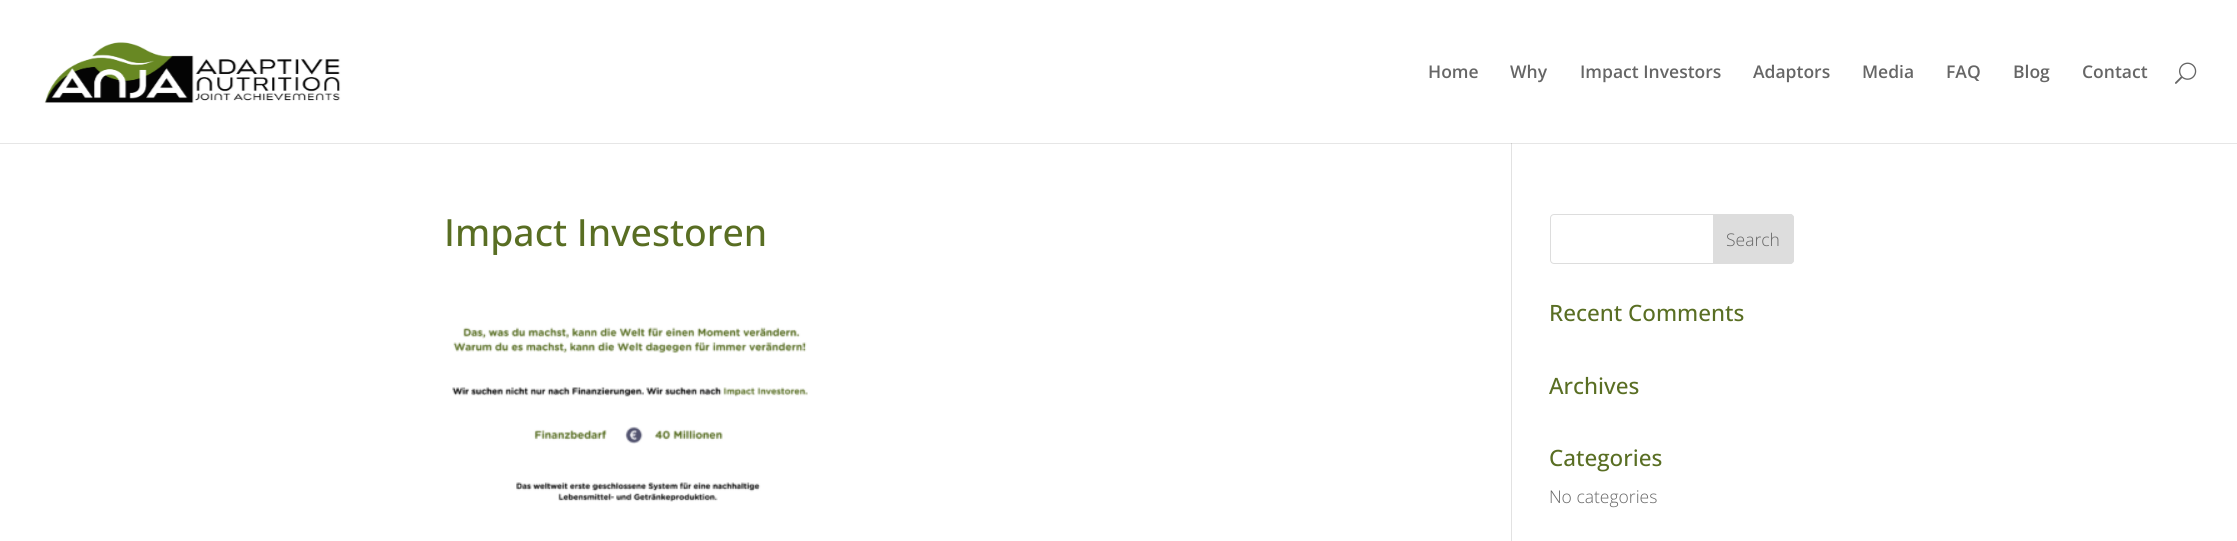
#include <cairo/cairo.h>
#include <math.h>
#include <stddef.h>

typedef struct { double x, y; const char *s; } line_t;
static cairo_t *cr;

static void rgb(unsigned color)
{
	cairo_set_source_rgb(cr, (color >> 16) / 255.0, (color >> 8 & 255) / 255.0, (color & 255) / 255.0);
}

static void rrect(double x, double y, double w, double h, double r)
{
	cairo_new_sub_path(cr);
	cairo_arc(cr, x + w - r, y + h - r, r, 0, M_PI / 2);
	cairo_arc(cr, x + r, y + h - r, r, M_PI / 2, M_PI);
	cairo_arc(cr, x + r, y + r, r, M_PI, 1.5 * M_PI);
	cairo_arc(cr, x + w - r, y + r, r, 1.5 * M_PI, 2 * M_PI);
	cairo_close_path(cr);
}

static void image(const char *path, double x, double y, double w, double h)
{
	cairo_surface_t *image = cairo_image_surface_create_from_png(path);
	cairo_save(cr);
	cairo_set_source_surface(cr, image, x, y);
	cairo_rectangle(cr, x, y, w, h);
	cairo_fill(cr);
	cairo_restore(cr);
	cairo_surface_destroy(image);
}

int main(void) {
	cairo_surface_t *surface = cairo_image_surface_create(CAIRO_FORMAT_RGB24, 2237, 541);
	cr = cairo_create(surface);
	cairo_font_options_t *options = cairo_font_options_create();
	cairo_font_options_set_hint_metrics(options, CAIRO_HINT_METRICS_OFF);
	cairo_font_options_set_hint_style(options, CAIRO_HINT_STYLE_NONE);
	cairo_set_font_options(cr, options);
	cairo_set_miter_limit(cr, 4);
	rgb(0xffffff);
	cairo_paint(cr);
	rgb(0xe2e2e2);
	cairo_rectangle(cr, 1511, 141, 1, 400);
	cairo_fill(cr);
	cairo_set_source_rgba(cr, 0, 0, 0, 0.1);
	cairo_new_path(cr);
	cairo_move_to(cr, 0, 142);
	cairo_line_to(cr, 0, 144);
	cairo_line_to(cr, 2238, 144);
	cairo_line_to(cr, 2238, 1);
	cairo_line_to(cr, 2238, 142);
	cairo_close_path(cr);
	cairo_fill(cr);
	rgb(0xffffff);
	cairo_rectangle(cr, 0, 141, 2237, 2);
	cairo_fill(cr);
	image("img/1.png", 44, 42, 297, 61);
	image("img/2.png", 2175, 62, 22, 22);
	image("img/3.png", 452, 327, 356, 175);
	rrect(1550.5, 214.5, 243, 49, 3.5);
	rgb(0xdddddd);
	cairo_set_line_width(cr, 1);
	cairo_stroke(cr);
	cairo_new_path(cr);
	cairo_move_to(cr, 1713.5, 214.5);
	cairo_line_to(cr, 1790, 214.5);
	cairo_curve_to(cr, 1792, 214.5, 1793.5, 216, 1793.5, 218);
	cairo_line_to(cr, 1793.5, 260);
	cairo_curve_to(cr, 1793.5, 262, 1792, 263.5, 1790, 263.5);
	cairo_line_to(cr, 1713.5, 263.5);
	cairo_close_path(cr);
	cairo_fill_preserve(cr);
	cairo_stroke(cr);
	cairo_select_font_face(cr, "Open Sans SemiBold", CAIRO_FONT_SLANT_NORMAL, CAIRO_FONT_WEIGHT_NORMAL);
	cairo_set_font_size(cr, 17.5);
	rgb(0x666666);
	{
		static const line_t items[] = {
			{1428, 78, "Home"},
			{1510, 78, "Why"},
			{1580, 78, "Impact Investors"},
			{1753, 78, "Adaptors"},
			{1862, 78, "Media"},
			{1946, 78, "FAQ"},
			{2013, 78, "Blog"},
			{2082, 78, "Contact"},
		};
		for (size_t i = 0; i < sizeof items / sizeof *items; i++) {
			cairo_move_to(cr, items[i].x, items[i].y);
			cairo_show_text(cr, items[i].s);
		}
	}
	cairo_select_font_face(cr, "Open Sans Medium", CAIRO_FONT_SLANT_NORMAL, CAIRO_FONT_WEIGHT_NORMAL);
	cairo_set_font_size(cr, 37.5);
	rgb(0x596e23);
	cairo_move_to(cr, 444, 246);
	cairo_show_text(cr, "Impact Investoren");
	cairo_select_font_face(cr, "Open Sans Light", CAIRO_FONT_SLANT_NORMAL, CAIRO_FONT_WEIGHT_NORMAL);
	cairo_set_font_size(cr, 17.5);
	rgb(0x666666);
	cairo_move_to(cr, 1726, 246);
	cairo_show_text(cr, "Search");
	cairo_select_font_face(cr, "Open Sans Medium", CAIRO_FONT_SLANT_NORMAL, CAIRO_FONT_WEIGHT_NORMAL);
	cairo_set_font_size(cr, 22.5);
	rgb(0x596e23);
	{
		static const line_t items[] = {
			{1549, 321, "Recent Comments"},
			{1549, 394, "Archives"},
			{1549, 466, "Categories"},
		};
		for (size_t i = 0; i < sizeof items / sizeof *items; i++) {
			cairo_move_to(cr, items[i].x, items[i].y);
			cairo_show_text(cr, items[i].s);
		}
	}
	cairo_select_font_face(cr, "Open Sans Light", CAIRO_FONT_SLANT_NORMAL, CAIRO_FONT_WEIGHT_NORMAL);
	cairo_set_font_size(cr, 17.5);
	rgb(0x666666);
	cairo_move_to(cr, 1549, 503);
	cairo_show_text(cr, "No categories");
	cairo_surface_write_to_png(surface, "page.png");
	cairo_font_options_destroy(options);
	cairo_destroy(cr);
	cairo_surface_destroy(surface);
	return 0;
}
